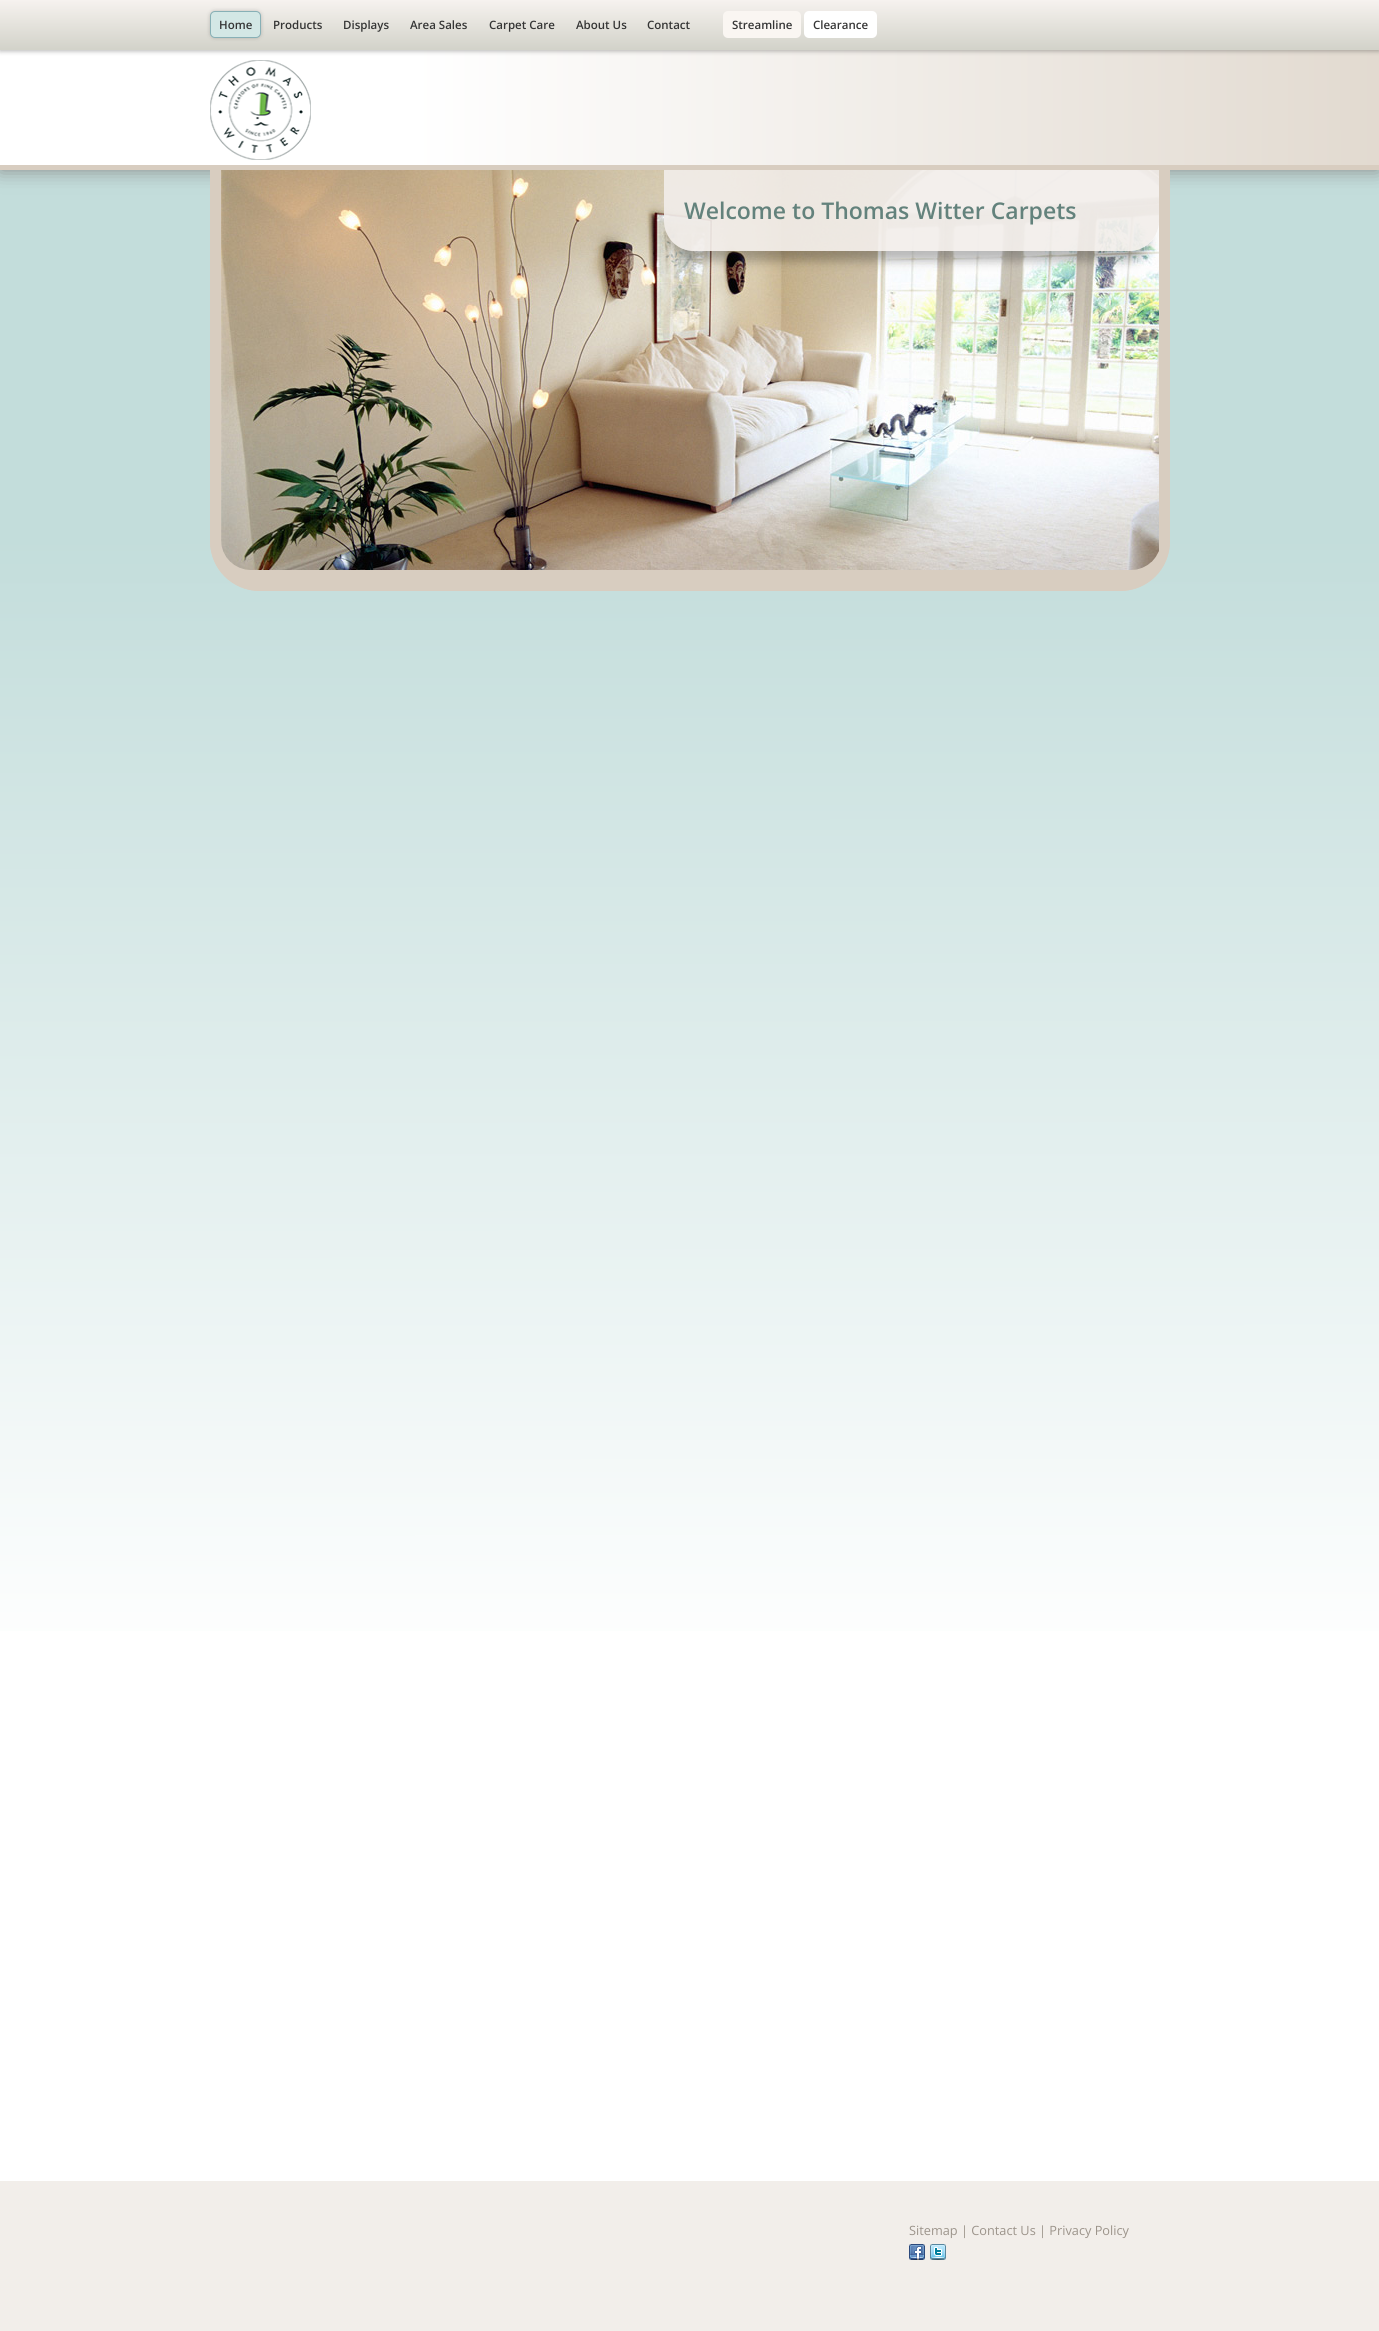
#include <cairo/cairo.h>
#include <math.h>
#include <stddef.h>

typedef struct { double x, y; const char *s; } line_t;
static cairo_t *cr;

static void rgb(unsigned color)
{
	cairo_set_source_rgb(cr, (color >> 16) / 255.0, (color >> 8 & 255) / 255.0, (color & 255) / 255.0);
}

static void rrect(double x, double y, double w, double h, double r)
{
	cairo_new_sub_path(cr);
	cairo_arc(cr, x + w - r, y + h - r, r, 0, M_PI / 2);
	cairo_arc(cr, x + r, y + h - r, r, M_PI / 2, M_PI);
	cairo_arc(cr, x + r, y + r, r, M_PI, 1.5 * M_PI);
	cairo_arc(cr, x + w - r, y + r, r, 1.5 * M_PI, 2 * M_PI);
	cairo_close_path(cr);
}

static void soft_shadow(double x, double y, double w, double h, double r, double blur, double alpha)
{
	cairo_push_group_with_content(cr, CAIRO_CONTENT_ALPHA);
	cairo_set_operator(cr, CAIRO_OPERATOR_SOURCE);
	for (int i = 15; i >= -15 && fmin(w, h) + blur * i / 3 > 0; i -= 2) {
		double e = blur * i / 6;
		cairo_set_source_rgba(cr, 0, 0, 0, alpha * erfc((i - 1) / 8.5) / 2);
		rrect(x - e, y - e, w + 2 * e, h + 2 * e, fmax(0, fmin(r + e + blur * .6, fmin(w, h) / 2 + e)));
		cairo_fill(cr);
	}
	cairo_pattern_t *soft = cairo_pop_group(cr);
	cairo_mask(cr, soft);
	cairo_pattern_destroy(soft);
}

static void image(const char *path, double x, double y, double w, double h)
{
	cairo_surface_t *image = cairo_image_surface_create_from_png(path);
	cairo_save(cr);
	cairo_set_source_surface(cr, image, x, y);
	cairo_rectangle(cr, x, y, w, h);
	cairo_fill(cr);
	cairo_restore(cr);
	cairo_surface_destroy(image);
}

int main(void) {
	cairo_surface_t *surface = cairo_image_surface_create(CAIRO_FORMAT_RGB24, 1379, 2331);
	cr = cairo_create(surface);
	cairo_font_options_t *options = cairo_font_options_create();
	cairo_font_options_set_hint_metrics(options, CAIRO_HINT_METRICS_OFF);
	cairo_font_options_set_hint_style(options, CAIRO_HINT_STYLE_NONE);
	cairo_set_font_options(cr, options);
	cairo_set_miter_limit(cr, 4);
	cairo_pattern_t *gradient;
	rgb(0xffffff);
	cairo_paint(cr);
	gradient = cairo_pattern_create_linear(689, 0, 690, 2331);
	cairo_pattern_add_color_stop_rgba(gradient, 0.23, 0.765, 0.867, 0.859, 1);
	cairo_pattern_add_color_stop_rgba(gradient, 0.72, 1, 1, 1, 1);
	cairo_set_source(cr, gradient);
	cairo_pattern_destroy(gradient);
	cairo_rectangle(cr, 0, 170, 1379, 1461);
	cairo_fill(cr);
	rgb(0x888888);
	soft_shadow(0, 50, 1379, 120, 0, 10, 1);
	gradient = cairo_pattern_create_linear(0, 108, 1379, 107);
	cairo_pattern_add_color_stop_rgba(gradient, 0.3, 1, 1, 1, 1);
	cairo_pattern_add_color_stop_rgba(gradient, 1, 0.886, 0.855, 0.816, 1);
	cairo_set_source(cr, gradient);
	cairo_pattern_destroy(gradient);
	cairo_rectangle(cr, 0, 50, 1379, 115);
	cairo_fill(cr);
	rgb(0xd8cdc0);
	cairo_rectangle(cr, 0, 165, 1379, 5);
	cairo_fill(cr);
	image("img/1.png", 210, 60, 101, 100);
	rgb(0x000000);
	soft_shadow(0, 1, 1379, 50, 0, 2.5, 0.3);
	gradient = cairo_pattern_create_linear(690, 0, 690, 50);
	cairo_pattern_add_color_stop_rgba(gradient, 0, 0.965, 0.949, 0.937, 1);
	cairo_pattern_add_color_stop_rgba(gradient, 0.98, 0.827, 0.827, 0.792, 1);
	cairo_set_source(cr, gradient);
	cairo_pattern_destroy(gradient);
	cairo_rectangle(cr, 0, 0, 1379, 50);
	cairo_fill(cr);
	rgb(0x000000);
	soft_shadow(210, 11, 51, 27, 5, 2, 0.2);
	rgb(0xd3e7e5);
	rrect(210.5, 11.5, 50, 26, 4.5);
	cairo_fill_preserve(cr);
	rgb(0x88b0b6);
	cairo_set_line_width(cr, 1);
	cairo_stroke(cr);
	rgb(0xfaf6f2);
	rrect(723, 11, 78, 27, 5);
	cairo_fill(cr);
	rgb(0xffffff);
	rrect(804, 11, 73, 27, 5);
	cairo_fill(cr);
	rgb(0xd8cdc0);
	cairo_new_path(cr);
	cairo_move_to(cr, 210, 170);
	cairo_line_to(cr, 1170, 170);
	cairo_line_to(cr, 1170, 541);
	cairo_curve_to(cr, 1170, 568.5, 1147.5, 591, 1120, 591);
	cairo_line_to(cr, 260, 591);
	cairo_curve_to(cr, 232.5, 591, 210, 568.5, 210, 541);
	cairo_close_path(cr);
	cairo_fill(cr);
	cairo_set_fill_rule(cr, CAIRO_FILL_RULE_EVEN_ODD);
	cairo_new_path(cr);
	cairo_move_to(cr, 210, 170);
	cairo_line_to(cr, 1170, 170);
	cairo_line_to(cr, 1170, 541);
	cairo_curve_to(cr, 1170, 569, 1148, 591, 1120, 591);
	cairo_line_to(cr, 260, 591);
	cairo_curve_to(cr, 232, 591, 210, 569, 210, 541);
	cairo_close_path(cr);
	cairo_move_to(cr, 211, 170);
	cairo_line_to(cr, 1169, 170);
	cairo_line_to(cr, 1169, 541);
	cairo_curve_to(cr, 1169, 568, 1147, 590, 1120, 590);
	cairo_line_to(cr, 260, 590);
	cairo_curve_to(cr, 233, 590, 211, 568, 211, 541);
	cairo_close_path(cr);
	cairo_fill(cr);
	image("img/2.png", 221, 170, 938, 400);
	cairo_save(cr);
	cairo_new_path(cr);
	cairo_move_to(cr, 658, 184);
	cairo_line_to(cr, 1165, 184);
	cairo_line_to(cr, 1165, 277);
	cairo_line_to(cr, 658, 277);
	cairo_close_path(cr);
	cairo_move_to(cr, 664, 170);
	cairo_line_to(cr, 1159, 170);
	cairo_line_to(cr, 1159, 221);
	cairo_curve_to(cr, 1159, 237.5, 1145.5, 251, 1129, 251);
	cairo_line_to(cr, 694, 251);
	cairo_curve_to(cr, 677.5, 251, 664, 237.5, 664, 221);
	cairo_close_path(cr);
	cairo_clip(cr);
	rgb(0x000000);
	soft_shadow(674, 200, 475, 61, 20, 5, 0.27);
	cairo_restore(cr);
	cairo_set_source_rgba(cr, 0.949, 0.933, 0.918, 0.9);
	cairo_new_path(cr);
	cairo_move_to(cr, 664, 170);
	cairo_line_to(cr, 1159, 170);
	cairo_line_to(cr, 1159, 221);
	cairo_curve_to(cr, 1159, 237.5, 1145.5, 251, 1129, 251);
	cairo_line_to(cr, 694, 251);
	cairo_curve_to(cr, 677.5, 251, 664, 237.5, 664, 221);
	cairo_close_path(cr);
	cairo_fill(cr);
	rgb(0xf2eeea);
	cairo_rectangle(cr, 0, 2181, 1379, 150);
	cairo_fill(cr);
	image("img/3.png", 909, 2244, 16, 16);
	image("img/4.png", 930, 2244, 16, 16);
	cairo_select_font_face(cr, "Open Sans SemiBold", CAIRO_FONT_SLANT_NORMAL, CAIRO_FONT_WEIGHT_NORMAL);
	cairo_set_font_size(cr, 11.5);
	rgb(0x353535);
	{
		static const line_t items[] = {
			{219, 29, "Home"},
			{273, 29, "Products"},
			{343, 29, "Displays"},
			{410, 29, "Area Sales"},
			{489, 29, "Carpet Care"},
			{576, 29, "About Us"},
			{647, 29, "Contact"},
			{732, 29, "Streamline"},
			{813, 29, "Clearance"},
		};
		for (size_t i = 0; i < sizeof items / sizeof *items; i++) {
			cairo_move_to(cr, items[i].x, items[i].y);
			cairo_show_text(cr, items[i].s);
		}
	}
	cairo_set_font_size(cr, 23);
	rgb(0x63827c);
	cairo_move_to(cr, 684, 219);
	cairo_show_text(cr, "Welcome to Thomas Witter Carpets");
	cairo_select_font_face(cr, "Open Sans", CAIRO_FONT_SLANT_NORMAL, CAIRO_FONT_WEIGHT_NORMAL);
	cairo_set_font_size(cr, 12.75);
	rgb(0x9c948b);
	cairo_move_to(cr, 909, 2235);
	cairo_show_text(cr, "Sitemap | Contact Us | Privacy Policy");
	cairo_surface_write_to_png(surface, "page.png");
	cairo_font_options_destroy(options);
	cairo_destroy(cr);
	cairo_surface_destroy(surface);
	return 0;
}
